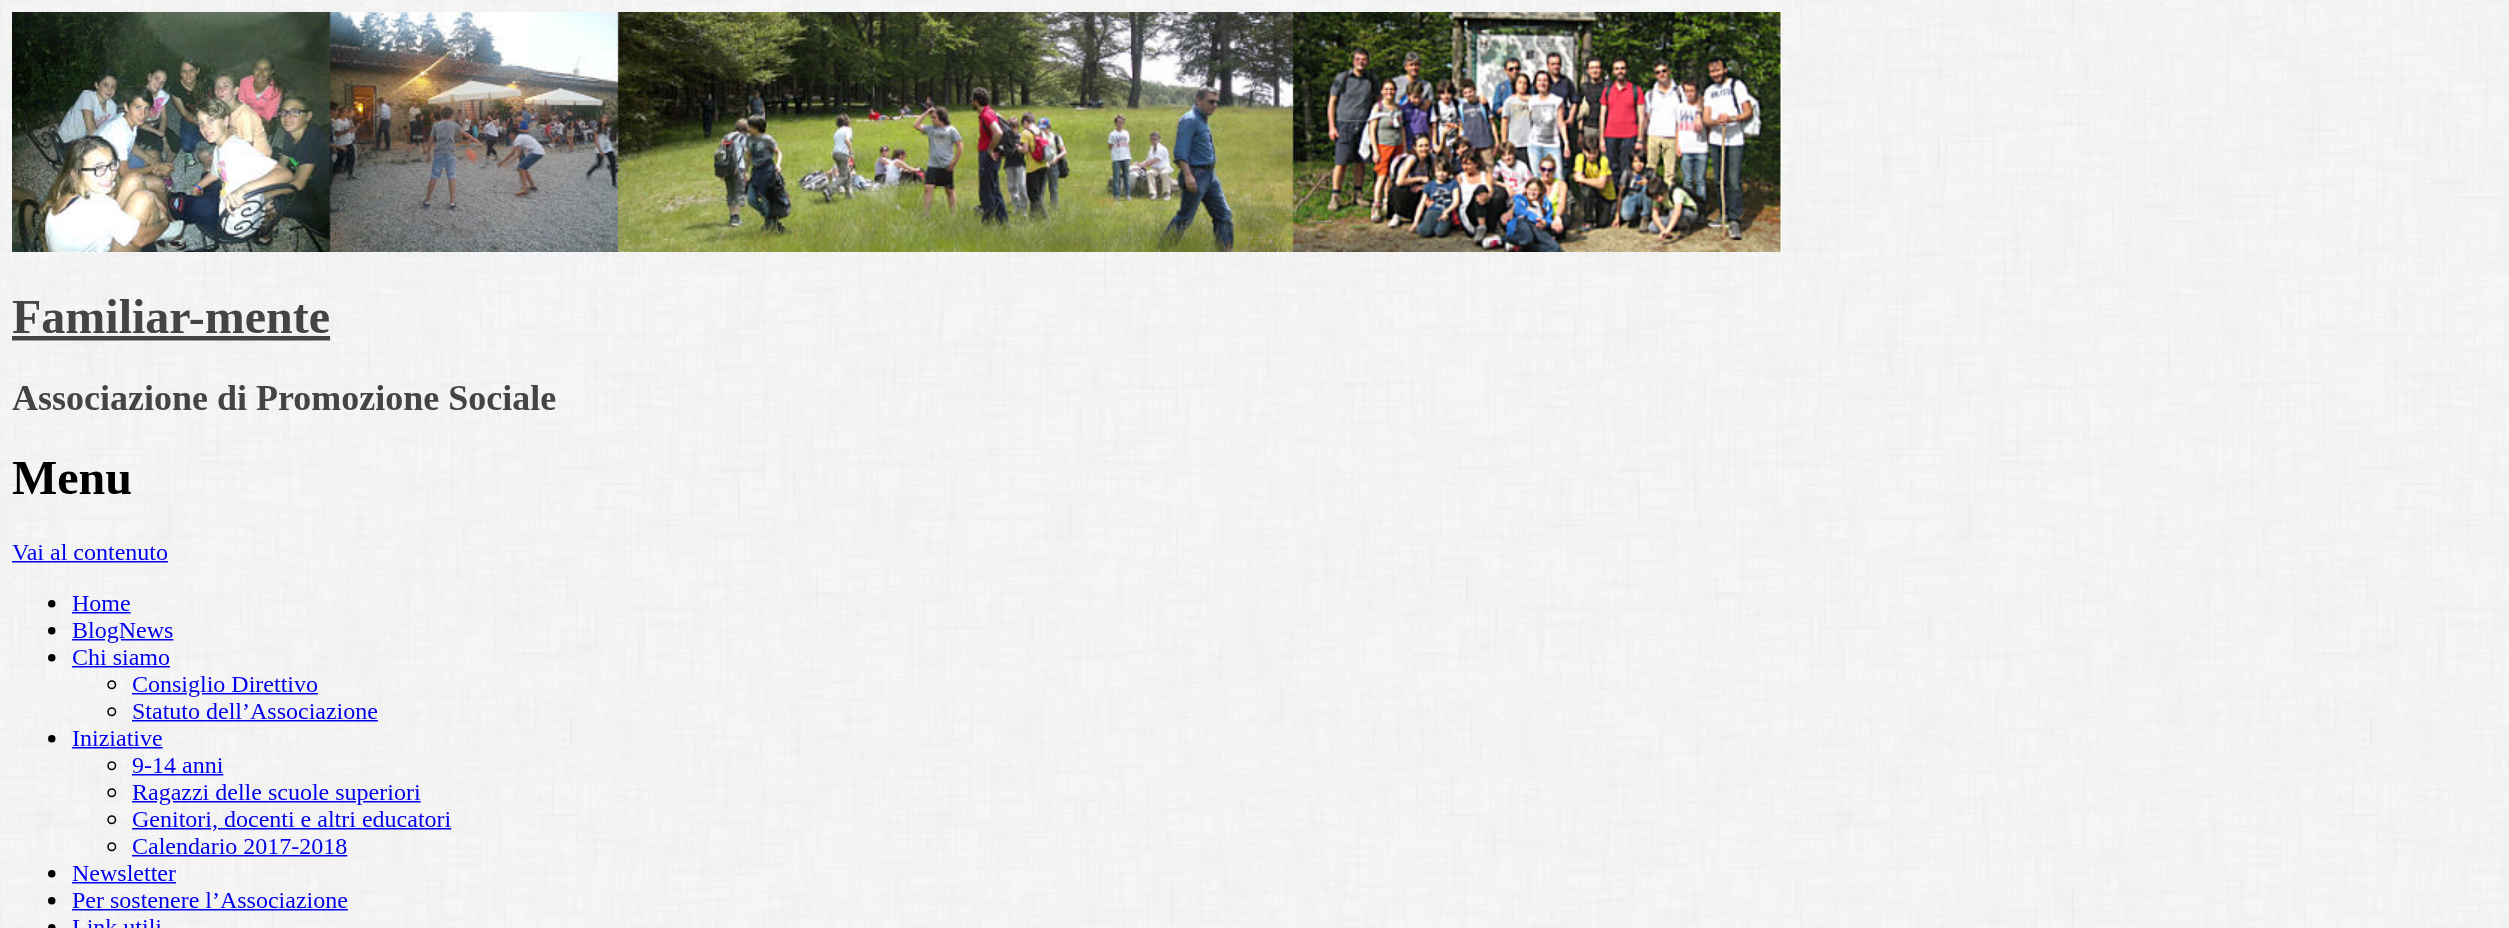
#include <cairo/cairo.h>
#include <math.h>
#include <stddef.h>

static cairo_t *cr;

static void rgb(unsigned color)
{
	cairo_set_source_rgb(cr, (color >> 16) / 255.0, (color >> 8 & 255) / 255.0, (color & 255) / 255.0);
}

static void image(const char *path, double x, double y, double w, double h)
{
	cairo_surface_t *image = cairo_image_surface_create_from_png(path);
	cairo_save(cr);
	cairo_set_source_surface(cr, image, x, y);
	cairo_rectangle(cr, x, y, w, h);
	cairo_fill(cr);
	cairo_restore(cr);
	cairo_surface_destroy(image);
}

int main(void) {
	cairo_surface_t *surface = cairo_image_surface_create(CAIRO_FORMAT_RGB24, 2509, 928);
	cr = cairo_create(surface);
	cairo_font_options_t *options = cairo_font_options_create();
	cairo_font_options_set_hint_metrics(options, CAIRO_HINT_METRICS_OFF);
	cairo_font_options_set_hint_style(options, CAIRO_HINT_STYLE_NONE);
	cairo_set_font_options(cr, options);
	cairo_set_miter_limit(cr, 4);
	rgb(0xffffff);
	cairo_paint(cr);
	image("img/1.png", 0, 0, 2509, 928);
	cairo_surface_write_to_png(surface, "page.png");
	cairo_font_options_destroy(options);
	cairo_destroy(cr);
	cairo_surface_destroy(surface);
	return 0;
}
